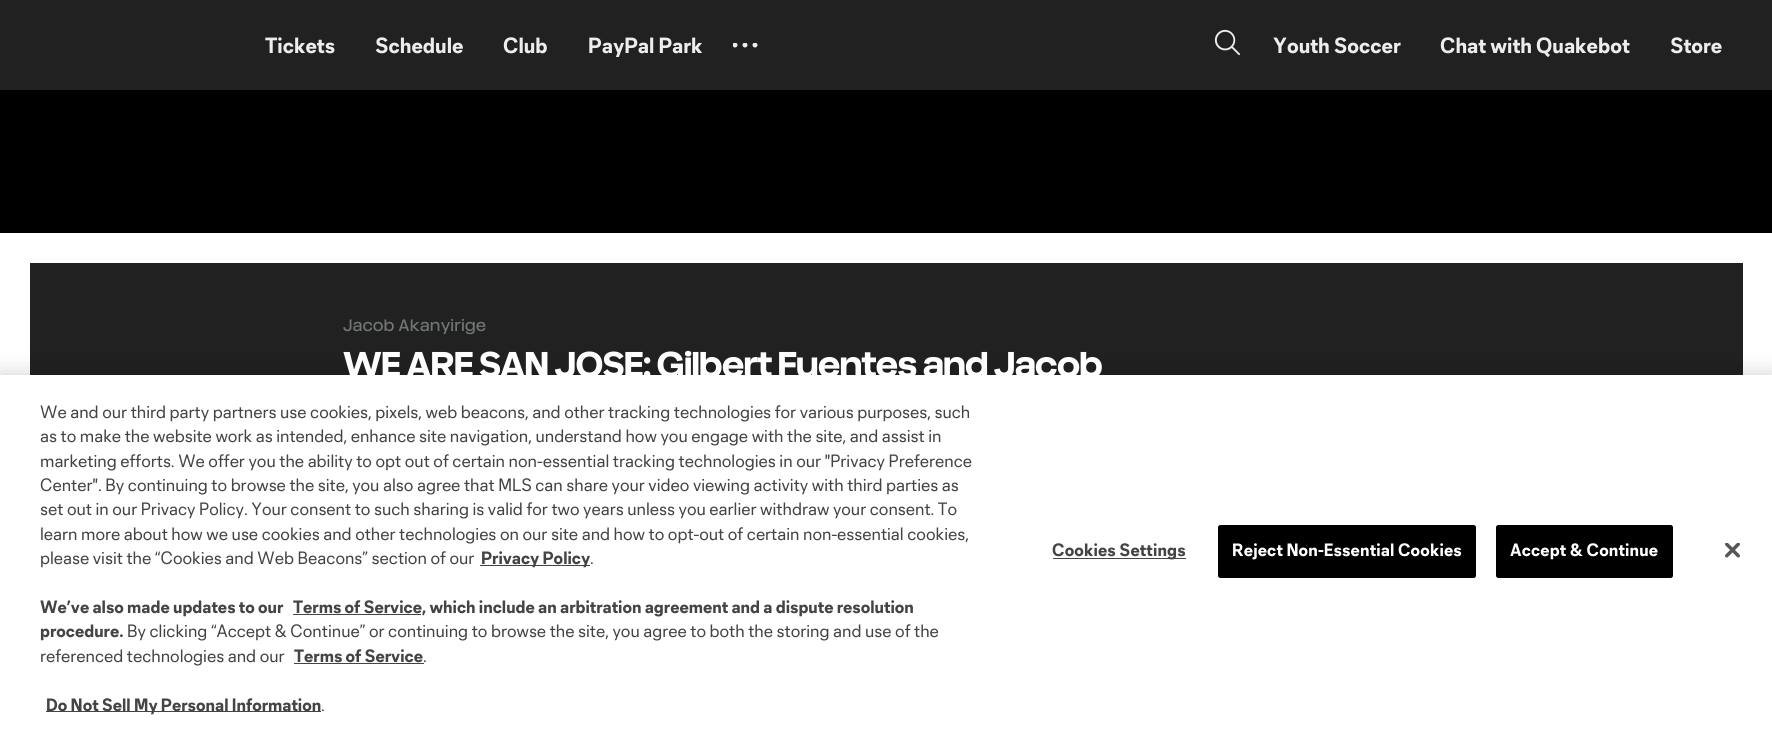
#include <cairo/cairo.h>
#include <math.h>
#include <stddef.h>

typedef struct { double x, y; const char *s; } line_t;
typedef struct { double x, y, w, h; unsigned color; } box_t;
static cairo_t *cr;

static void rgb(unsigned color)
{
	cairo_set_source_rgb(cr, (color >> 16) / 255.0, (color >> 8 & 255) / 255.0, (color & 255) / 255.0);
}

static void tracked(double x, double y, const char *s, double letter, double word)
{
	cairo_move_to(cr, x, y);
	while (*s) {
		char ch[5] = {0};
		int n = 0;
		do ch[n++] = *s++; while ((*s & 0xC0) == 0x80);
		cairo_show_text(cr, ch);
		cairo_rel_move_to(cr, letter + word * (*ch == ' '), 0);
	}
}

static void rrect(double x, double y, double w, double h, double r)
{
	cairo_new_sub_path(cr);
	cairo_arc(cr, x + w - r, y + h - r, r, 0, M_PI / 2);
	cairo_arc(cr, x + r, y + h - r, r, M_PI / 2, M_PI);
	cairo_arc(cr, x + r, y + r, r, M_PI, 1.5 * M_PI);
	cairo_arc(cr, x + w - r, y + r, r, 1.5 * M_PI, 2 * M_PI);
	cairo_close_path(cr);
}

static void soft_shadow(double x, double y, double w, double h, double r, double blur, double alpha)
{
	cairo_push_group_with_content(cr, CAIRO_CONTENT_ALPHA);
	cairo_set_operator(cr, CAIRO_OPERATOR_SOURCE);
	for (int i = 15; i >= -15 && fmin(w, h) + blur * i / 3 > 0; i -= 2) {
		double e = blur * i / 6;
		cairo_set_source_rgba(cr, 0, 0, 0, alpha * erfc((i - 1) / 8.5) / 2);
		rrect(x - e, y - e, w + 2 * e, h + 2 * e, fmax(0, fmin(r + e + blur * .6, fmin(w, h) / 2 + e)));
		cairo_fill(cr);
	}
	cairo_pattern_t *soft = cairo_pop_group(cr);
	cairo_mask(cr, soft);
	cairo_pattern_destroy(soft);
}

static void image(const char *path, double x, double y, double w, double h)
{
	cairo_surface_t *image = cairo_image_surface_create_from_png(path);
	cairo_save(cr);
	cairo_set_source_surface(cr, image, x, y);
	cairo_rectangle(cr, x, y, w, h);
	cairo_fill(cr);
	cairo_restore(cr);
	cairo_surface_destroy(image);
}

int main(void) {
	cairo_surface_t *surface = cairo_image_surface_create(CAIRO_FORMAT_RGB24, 1772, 730);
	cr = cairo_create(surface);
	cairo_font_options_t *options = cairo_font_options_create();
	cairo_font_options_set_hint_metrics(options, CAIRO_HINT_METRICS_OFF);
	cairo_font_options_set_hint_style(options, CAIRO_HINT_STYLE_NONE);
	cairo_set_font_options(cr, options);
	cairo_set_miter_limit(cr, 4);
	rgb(0xffffff);
	cairo_paint(cr);
	rgb(0x212121);
	cairo_rectangle(cr, 0, 0, 1772, 90);
	cairo_fill(cr);
	image("img/1.png", 733, 43, 25, 5);
	image("img/2.png", 1214, 29, 26, 27);
	rgb(0x000000);
	cairo_rectangle(cr, 0, 90, 1772, 143);
	cairo_fill(cr);
	rgb(0x212121);
	cairo_rectangle(cr, 30, 263, 1713, 112);
	cairo_fill(cr);
	rgb(0x000000);
	soft_shadow(0, 375, 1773, 355, 0, 11, 0.2);
	{
		static const box_t items[] = {
			{0, 375, 1772, 355, 0xffffff},
			{480, 565, 110, 1, 0x444444},
			{293, 614, 128, 1, 0x444444},
			{294, 663, 130, 1, 0x444444},
			{46, 711, 275, 1, 0x444444},
			{1053, 558, 133, 1, 0x444444},
		};
		for (size_t i = 0; i < sizeof items / sizeof *items; i++) {
			rgb(items[i].color);
			cairo_rectangle(cr, items[i].x, items[i].y, items[i].w, items[i].h);
			cairo_fill(cr);
		}
	}
	rgb(0x000000);
	rrect(1218.5, 525.5, 257, 52, 2);
	cairo_fill_preserve(cr);
	cairo_set_line_width(cr, 1);
	cairo_stroke(cr);
	rrect(1496.5, 525.5, 176, 52, 2);
	cairo_fill_preserve(cr);
	cairo_stroke(cr);
	image("img/3.png", 1725, 543, 15, 15);
	cairo_select_font_face(cr, "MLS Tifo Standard", CAIRO_FONT_SLANT_NORMAL, CAIRO_FONT_WEIGHT_BOLD);
	cairo_set_font_size(cr, 20);
	rgb(0xededed);
	{
		static const line_t items[] = {
			{265, 53, "Tickets"},
			{375, 53, "Schedule"},
			{503, 53, "Club"},
			{588, 53, "PayPal Park"},
			{1273, 53, "Youth Soccer"},
			{1440, 53, "Chat with Quakebot"},
			{1670, 53, "Store"},
		};
		for (size_t i = 0; i < sizeof items / sizeof *items; i++) {
			cairo_move_to(cr, items[i].x, items[i].y);
			cairo_show_text(cr, items[i].s);
		}
	}
	cairo_select_font_face(cr, "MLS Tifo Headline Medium", CAIRO_FONT_SLANT_NORMAL, CAIRO_FONT_WEIGHT_NORMAL);
	cairo_set_font_size(cr, 15);
	rgb(0x707576);
	tracked(343, 331, "Jacob Akanyirige", 0.5, 0);
	cairo_select_font_face(cr, "MLS Tifo Headline", CAIRO_FONT_SLANT_NORMAL, CAIRO_FONT_WEIGHT_BOLD);
	cairo_set_font_size(cr, 32.5);
	rgb(0xffffff);
	tracked(343, 377, "WE ARE SAN JOSE: Gilbert Fuentes and Jacob", -0.7, 0);
	cairo_select_font_face(cr, "MLS Tifo Standard", CAIRO_FONT_SLANT_NORMAL, CAIRO_FONT_WEIGHT_NORMAL);
	cairo_set_font_size(cr, 16.25);
	rgb(0x444444);
	{
		static const line_t items[] = {
			{40, 418, "We and our third party partners use cookies, pixels, web beacons, and other tracking technologies for various purposes, such"},
			{40, 442, "as to make the website work as intended, enhance site navigation, understand how you engage with the site, and assist in"},
			{40, 467, "marketing efforts. We offer you the ability to opt out of certain non-essential tracking technologies in our \"Privacy Preference"},
			{40, 491, "Center\". By continuing to browse the site, you also agree that MLS can share your video viewing activity with third parties as"},
			{40, 515, "set out in our Privacy Policy. Your consent to such sharing is valid for two years unless you earlier withdraw your consent. To"},
			{40, 540, "learn more about how we use cookies and other technologies on our site and how to opt-out of certain non-essential cookies,"},
			{40, 564, "please visit the “Cookies and Web Beacons” section of our"},
		};
		for (size_t i = 0; i < sizeof items / sizeof *items; i++) {
			cairo_move_to(cr, items[i].x, items[i].y);
			cairo_show_text(cr, items[i].s);
		}
	}
	cairo_select_font_face(cr, "MLS Tifo Standard", CAIRO_FONT_SLANT_NORMAL, CAIRO_FONT_WEIGHT_BOLD);
	cairo_move_to(cr, 481, 564);
	cairo_show_text(cr, "Privacy Policy");
	cairo_select_font_face(cr, "MLS Tifo Standard", CAIRO_FONT_SLANT_NORMAL, CAIRO_FONT_WEIGHT_NORMAL);
	cairo_move_to(cr, 590, 564);
	cairo_show_text(cr, ".");
	cairo_select_font_face(cr, "MLS Tifo Standard", CAIRO_FONT_SLANT_NORMAL, CAIRO_FONT_WEIGHT_BOLD);
	{
		static const line_t items[] = {
			{40, 613, "We’ve also made updates to our"},
			{293, 613, "Terms of Service, which include an arbitration agreement and a dispute resolution"},
			{40, 637, "procedure."},
		};
		for (size_t i = 0; i < sizeof items / sizeof *items; i++) {
			cairo_move_to(cr, items[i].x, items[i].y);
			cairo_show_text(cr, items[i].s);
		}
	}
	cairo_select_font_face(cr, "MLS Tifo Standard", CAIRO_FONT_SLANT_NORMAL, CAIRO_FONT_WEIGHT_NORMAL);
	cairo_move_to(cr, 127, 637);
	cairo_show_text(cr, "By clicking “Accept & Continue” or continuing to browse the site, you agree to both the storing and use of the");
	cairo_move_to(cr, 40, 662);
	cairo_show_text(cr, "referenced technologies and our");
	cairo_select_font_face(cr, "MLS Tifo Standard", CAIRO_FONT_SLANT_NORMAL, CAIRO_FONT_WEIGHT_BOLD);
	cairo_move_to(cr, 294, 662);
	cairo_show_text(cr, "Terms of Service");
	cairo_select_font_face(cr, "MLS Tifo Standard", CAIRO_FONT_SLANT_NORMAL, CAIRO_FONT_WEIGHT_NORMAL);
	cairo_move_to(cr, 423, 662);
	cairo_show_text(cr, ".");
	cairo_select_font_face(cr, "MLS Tifo Standard", CAIRO_FONT_SLANT_NORMAL, CAIRO_FONT_WEIGHT_BOLD);
	cairo_move_to(cr, 46, 711);
	cairo_show_text(cr, "Do Not Sell My Personal Information");
	cairo_select_font_face(cr, "MLS Tifo Standard", CAIRO_FONT_SLANT_NORMAL, CAIRO_FONT_WEIGHT_NORMAL);
	cairo_move_to(cr, 321, 711);
	cairo_show_text(cr, ".");
	cairo_select_font_face(cr, "MLS Tifo Standard", CAIRO_FONT_SLANT_NORMAL, CAIRO_FONT_WEIGHT_BOLD);
	tracked(1052, 556, "Cookies Settings", 0.15, 0);
	rgb(0xffffff);
	tracked(1232, 556, "Reject Non-Essential Cookies", 0.15, 0);
	tracked(1510, 556, "Accept & Continue", 0.15, 0);
	cairo_surface_write_to_png(surface, "page.png");
	cairo_font_options_destroy(options);
	cairo_destroy(cr);
	cairo_surface_destroy(surface);
	return 0;
}
